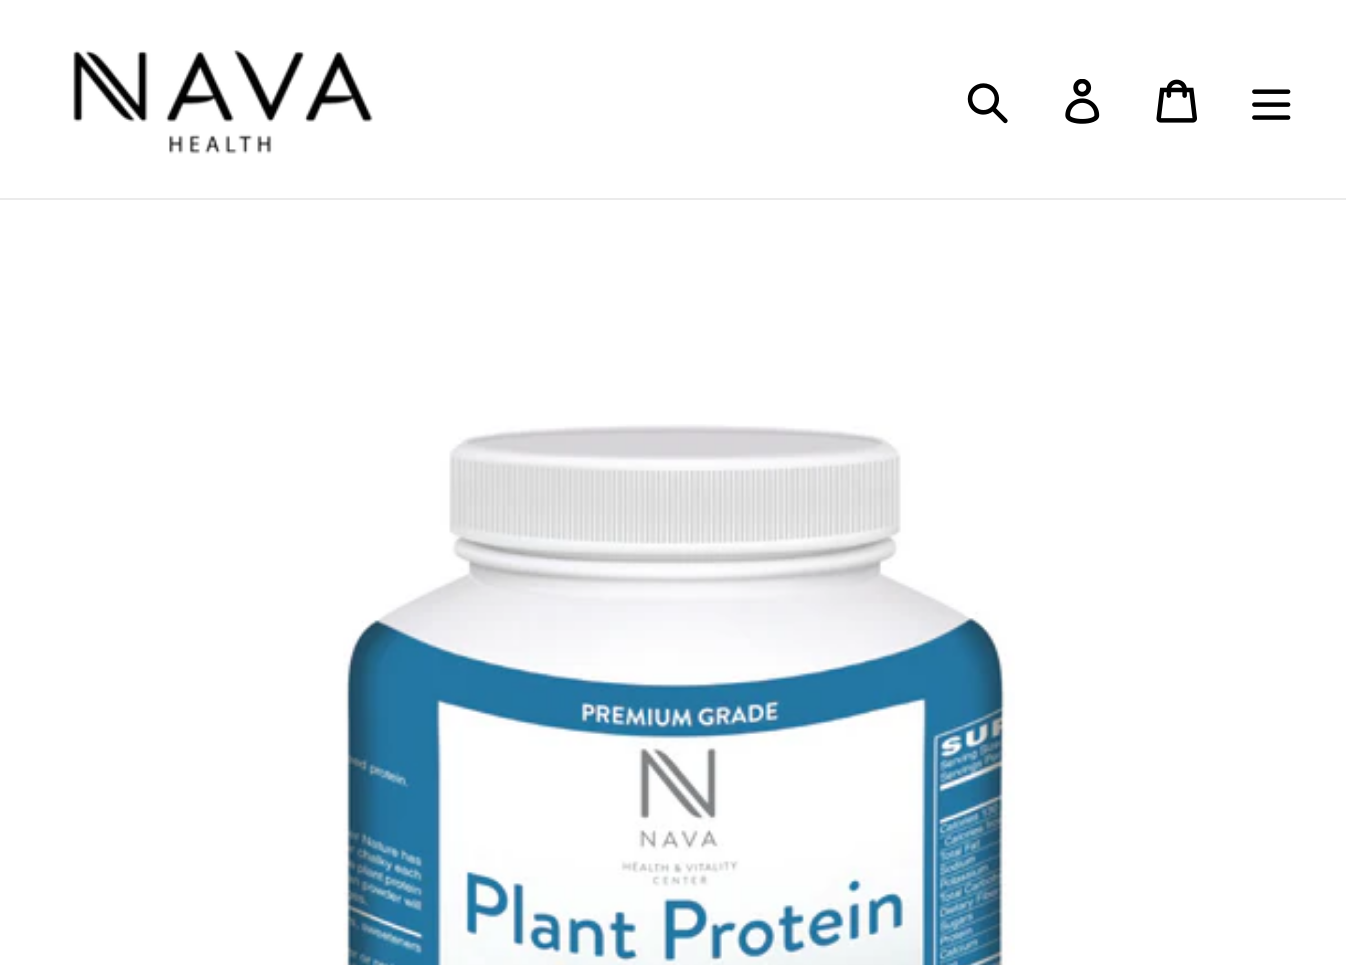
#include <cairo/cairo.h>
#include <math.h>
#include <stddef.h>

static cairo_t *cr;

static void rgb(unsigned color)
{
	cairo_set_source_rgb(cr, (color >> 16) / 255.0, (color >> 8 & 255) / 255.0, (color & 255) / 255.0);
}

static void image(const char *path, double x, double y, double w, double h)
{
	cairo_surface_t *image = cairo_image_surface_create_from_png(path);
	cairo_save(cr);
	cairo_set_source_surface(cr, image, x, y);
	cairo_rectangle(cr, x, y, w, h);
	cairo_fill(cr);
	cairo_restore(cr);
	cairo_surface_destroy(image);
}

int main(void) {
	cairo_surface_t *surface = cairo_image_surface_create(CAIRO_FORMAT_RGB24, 1346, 965);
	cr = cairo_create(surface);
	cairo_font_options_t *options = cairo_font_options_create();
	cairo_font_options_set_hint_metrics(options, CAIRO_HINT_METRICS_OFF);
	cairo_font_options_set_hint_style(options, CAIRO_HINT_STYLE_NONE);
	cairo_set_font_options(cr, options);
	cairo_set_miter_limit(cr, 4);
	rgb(0xffffff);
	cairo_paint(cr);
	rgb(0xebebeb);
	cairo_rectangle(cr, 0, 198, 1346, 2);
	cairo_fill(cr);
	image("img/1.png", 73, 50, 300, 104);
	image("img/2.png", 967, 83, 41, 41);
	image("img/3.png", 1065, 79, 35, 45);
	image("img/4.png", 1156, 79, 41, 44);
	image("img/5.png", 1252, 89, 39, 31);
	image("img/6.png", 343, 424, 672, 541);
	cairo_surface_write_to_png(surface, "page.png");
	cairo_font_options_destroy(options);
	cairo_destroy(cr);
	cairo_surface_destroy(surface);
	return 0;
}
